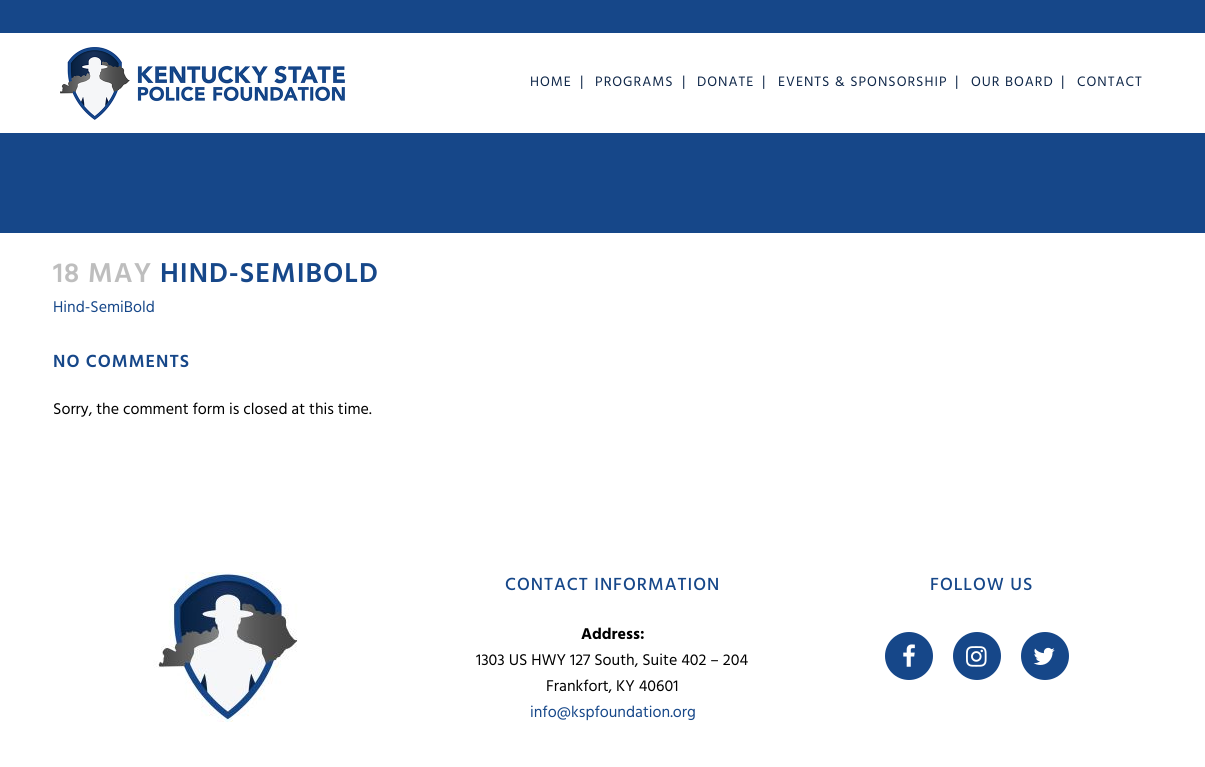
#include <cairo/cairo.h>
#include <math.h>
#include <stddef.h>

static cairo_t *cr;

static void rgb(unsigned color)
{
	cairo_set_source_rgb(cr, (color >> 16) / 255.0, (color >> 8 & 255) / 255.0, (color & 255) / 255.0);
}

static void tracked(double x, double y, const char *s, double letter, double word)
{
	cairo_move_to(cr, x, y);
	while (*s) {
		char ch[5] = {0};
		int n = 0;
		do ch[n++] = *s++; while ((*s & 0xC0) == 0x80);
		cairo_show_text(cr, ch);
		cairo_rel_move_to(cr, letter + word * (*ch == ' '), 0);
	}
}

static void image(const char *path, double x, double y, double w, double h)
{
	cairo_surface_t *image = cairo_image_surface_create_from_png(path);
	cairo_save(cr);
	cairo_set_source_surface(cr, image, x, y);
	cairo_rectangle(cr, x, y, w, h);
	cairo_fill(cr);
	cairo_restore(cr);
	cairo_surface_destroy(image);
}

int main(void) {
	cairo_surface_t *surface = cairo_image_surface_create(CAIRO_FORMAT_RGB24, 1205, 767);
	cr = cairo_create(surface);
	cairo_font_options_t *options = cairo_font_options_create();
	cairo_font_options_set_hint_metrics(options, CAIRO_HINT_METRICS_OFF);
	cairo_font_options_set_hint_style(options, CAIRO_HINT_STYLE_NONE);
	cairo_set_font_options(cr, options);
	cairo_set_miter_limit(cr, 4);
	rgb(0xffffff);
	cairo_paint(cr);
	rgb(0x164789);
	cairo_rectangle(cr, 0, 0, 1205, 233);
	cairo_fill(cr);
	rgb(0xffffff);
	cairo_rectangle(cr, 0, 33, 1205, 100);
	cairo_fill(cr);
	image("img/1.png", 60, 47, 285, 73);
	image("img/2.png", 153, 572, 145, 150);
	rgb(0x164789);
	cairo_arc(cr, 909, 656, 24, 0, 2 * M_PI);
	cairo_fill(cr);
	image("img/3.png", 903, 644, 12, 23);
	cairo_arc(cr, 977, 656, 24, 0, 2 * M_PI);
	cairo_fill(cr);
	image("img/4.png", 966, 646, 21, 21);
	cairo_arc(cr, 1045, 656, 24, 0, 2 * M_PI);
	cairo_fill(cr);
	image("img/5.png", 1033, 647, 22, 18);
	cairo_select_font_face(cr, "Hind", CAIRO_FONT_SLANT_NORMAL, CAIRO_FONT_WEIGHT_NORMAL);
	cairo_set_font_size(cr, 14);
	rgb(0x0e2648);
	tracked(530, 86, "HOME", 1, 0);
	cairo_set_font_size(cr, 15);
	cairo_move_to(cr, 580, 86);
	cairo_show_text(cr, "|");
	cairo_set_font_size(cr, 14);
	tracked(595, 86, "PROGRAMS", 1, 0);
	cairo_set_font_size(cr, 15);
	cairo_move_to(cr, 682, 86);
	cairo_show_text(cr, "|");
	cairo_set_font_size(cr, 14);
	tracked(697, 86, "DONATE", 1, 0);
	cairo_set_font_size(cr, 15);
	cairo_move_to(cr, 762, 86);
	cairo_show_text(cr, "|");
	cairo_set_font_size(cr, 14);
	tracked(778, 86, "EVENTS & SPONSORSHIP", 1, 0);
	cairo_set_font_size(cr, 15);
	cairo_move_to(cr, 955, 86);
	cairo_show_text(cr, "|");
	cairo_set_font_size(cr, 14);
	tracked(971, 86, "OUR BOARD", 1, 0);
	cairo_set_font_size(cr, 15);
	cairo_move_to(cr, 1061, 86);
	cairo_show_text(cr, "|");
	cairo_set_font_size(cr, 14);
	tracked(1077, 86, "CONTACT", 1, 0);
	cairo_select_font_face(cr, "Hind SemiBold", CAIRO_FONT_SLANT_NORMAL, CAIRO_FONT_WEIGHT_NORMAL);
	cairo_set_font_size(cr, 28);
	rgb(0xbebebe);
	tracked(53, 282, "18 MAY", 1, 0);
	rgb(0x164789);
	tracked(160, 282, "HIND-SEMIBOLD", 1, 0);
	cairo_select_font_face(cr, "Hind", CAIRO_FONT_SLANT_NORMAL, CAIRO_FONT_WEIGHT_NORMAL);
	cairo_set_font_size(cr, 16);
	cairo_move_to(cr, 53, 312);
	cairo_show_text(cr, "Hind-SemiBold");
	cairo_select_font_face(cr, "Hind SemiBold", CAIRO_FONT_SLANT_NORMAL, CAIRO_FONT_WEIGHT_NORMAL);
	cairo_set_font_size(cr, 18);
	tracked(53, 367, "NO COMMENTS", 1, 0);
	cairo_select_font_face(cr, "Hind", CAIRO_FONT_SLANT_NORMAL, CAIRO_FONT_WEIGHT_NORMAL);
	cairo_set_font_size(cr, 16);
	rgb(0x000000);
	cairo_move_to(cr, 53, 414);
	cairo_show_text(cr, "Sorry, the comment form is closed at this time.");
	cairo_select_font_face(cr, "Hind Medium", CAIRO_FONT_SLANT_NORMAL, CAIRO_FONT_WEIGHT_NORMAL);
	cairo_set_font_size(cr, 18);
	rgb(0x164789);
	tracked(505, 590, "CONTACT INFORMATION", 1, 0);
	cairo_select_font_face(cr, "Hind", CAIRO_FONT_SLANT_NORMAL, CAIRO_FONT_WEIGHT_BOLD);
	cairo_set_font_size(cr, 16);
	rgb(0x000000);
	cairo_move_to(cr, 581, 639);
	cairo_show_text(cr, "Address:");
	cairo_select_font_face(cr, "Hind", CAIRO_FONT_SLANT_NORMAL, CAIRO_FONT_WEIGHT_NORMAL);
	cairo_move_to(cr, 476, 665);
	cairo_show_text(cr, "1303 US HWY 127 South, Suite 402 – 204");
	cairo_move_to(cr, 546, 691);
	cairo_show_text(cr, "Frankfort, KY 40601");
	rgb(0x164789);
	cairo_move_to(cr, 530, 717);
	cairo_show_text(cr, "info@kspfoundation.org");
	cairo_select_font_face(cr, "Hind Medium", CAIRO_FONT_SLANT_NORMAL, CAIRO_FONT_WEIGHT_NORMAL);
	cairo_set_font_size(cr, 18);
	tracked(930, 590, "FOLLOW US", 1, 0);
	cairo_surface_write_to_png(surface, "page.png");
	cairo_font_options_destroy(options);
	cairo_destroy(cr);
	cairo_surface_destroy(surface);
	return 0;
}
